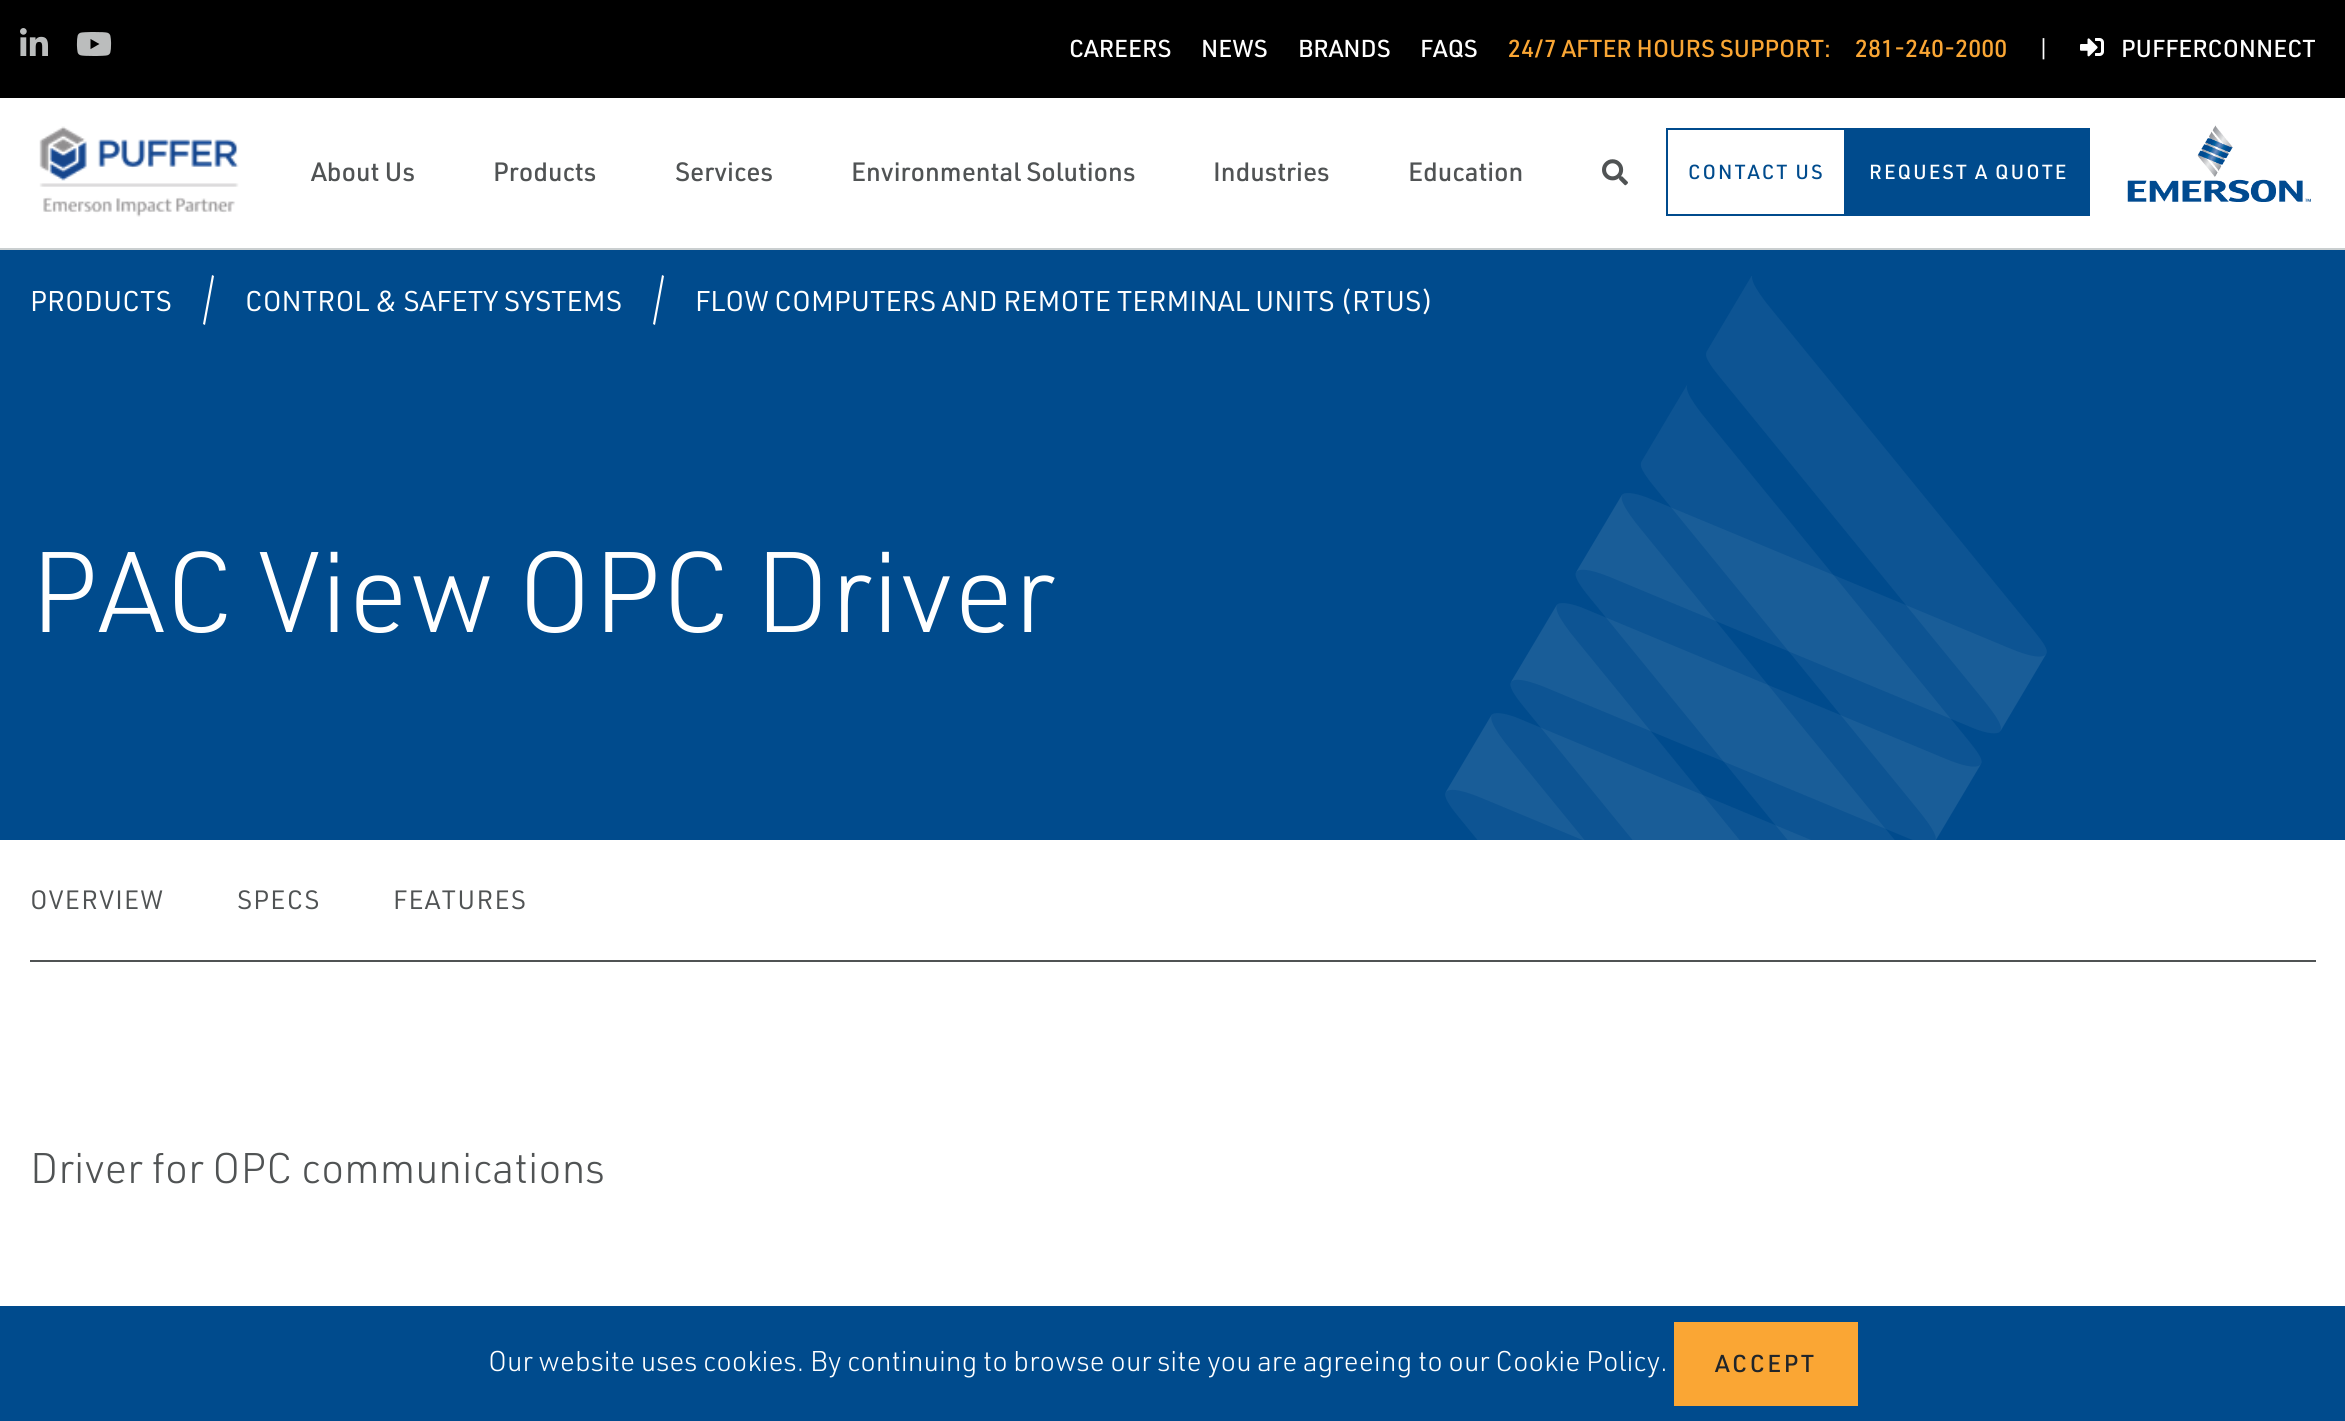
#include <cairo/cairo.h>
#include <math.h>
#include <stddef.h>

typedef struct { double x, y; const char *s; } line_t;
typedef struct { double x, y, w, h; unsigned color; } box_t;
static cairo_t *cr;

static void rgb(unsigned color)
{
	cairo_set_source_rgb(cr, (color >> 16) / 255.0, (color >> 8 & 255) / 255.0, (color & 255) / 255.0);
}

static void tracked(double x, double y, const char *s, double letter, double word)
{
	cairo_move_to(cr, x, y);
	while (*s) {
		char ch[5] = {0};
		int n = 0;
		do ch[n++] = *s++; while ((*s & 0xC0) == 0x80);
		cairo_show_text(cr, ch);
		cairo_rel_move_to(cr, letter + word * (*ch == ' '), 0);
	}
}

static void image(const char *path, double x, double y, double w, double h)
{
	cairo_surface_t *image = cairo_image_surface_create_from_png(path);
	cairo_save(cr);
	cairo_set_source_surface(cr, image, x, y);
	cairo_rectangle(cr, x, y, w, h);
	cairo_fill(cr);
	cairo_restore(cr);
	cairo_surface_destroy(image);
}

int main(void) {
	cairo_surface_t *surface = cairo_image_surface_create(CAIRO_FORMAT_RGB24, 2345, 1421);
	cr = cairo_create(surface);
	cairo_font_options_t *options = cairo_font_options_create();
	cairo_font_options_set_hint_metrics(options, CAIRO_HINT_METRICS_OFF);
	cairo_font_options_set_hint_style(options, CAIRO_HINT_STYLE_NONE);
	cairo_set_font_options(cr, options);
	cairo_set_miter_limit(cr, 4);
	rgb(0xffffff);
	cairo_paint(cr);
	rgb(0xcacfd0);
	cairo_rectangle(cr, 0, 248, 2345, 2);
	cairo_fill(cr);
	rgb(0x000000);
	cairo_rectangle(cr, 0, 0, 2345, 98);
	cairo_fill(cr);
	image("img/1.png", 20, 28, 28, 28);
	image("img/2.png", 76, 32, 36, 24);
	image("img/3.png", 2080, 38, 24, 19);
	image("img/4.png", 39, 126, 200, 91);
	image("img/5.png", 1602, 159, 26, 27);
	cairo_rectangle(cr, 1667, 129, 178, 86);
	rgb(0x004b8d);
	cairo_stroke(cr);
	cairo_rectangle(cr, 1846, 128, 244, 88);
	cairo_fill(cr);
	image("img/6.png", 2127, 125, 184, 77);
	cairo_rectangle(cr, 0, 250, 2345, 590);
	cairo_fill(cr);
	rgb(0xffffff);
	cairo_new_path(cr);
	cairo_move_to(cr, 212, 275);
	cairo_line_to(cr, 214, 276);
	cairo_line_to(cr, 205, 325);
	cairo_line_to(cr, 203, 324);
	cairo_close_path(cr);
	cairo_fill(cr);
	cairo_new_path(cr);
	cairo_move_to(cr, 662, 275);
	cairo_line_to(cr, 664, 276);
	cairo_line_to(cr, 655, 325);
	cairo_line_to(cr, 653, 324);
	cairo_close_path(cr);
	cairo_fill(cr);
	image("img/7.png", 1445, 276, 602, 564);
	{
		static const box_t items[] = {
			{30, 960, 2286, 2, 0x505354},
			{0, 1306, 2345, 115, 0x004b8d},
			{1674, 1322, 184, 84, 0xfaa634},
		};
		for (size_t i = 0; i < sizeof items / sizeof *items; i++) {
			rgb(items[i].color);
			cairo_rectangle(cr, items[i].x, items[i].y, items[i].w, items[i].h);
			cairo_fill(cr);
		}
	}
	cairo_select_font_face(cr, "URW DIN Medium", CAIRO_FONT_SLANT_NORMAL, CAIRO_FONT_WEIGHT_NORMAL);
	cairo_set_font_size(cr, 24);
	rgb(0xffffff);
	{
		static const line_t items[] = {
			{1069, 57, "CAREERS"},
			{1201, 57, "NEWS"},
			{1298, 57, "BRANDS"},
			{1420, 57, "FAQS"},
		};
		for (size_t i = 0; i < sizeof items / sizeof *items; i++) {
			cairo_move_to(cr, items[i].x, items[i].y);
			cairo_show_text(cr, items[i].s);
		}
	}
	rgb(0xfaa634);
	cairo_move_to(cr, 1508, 57);
	cairo_show_text(cr, "24/7 AFTER HOURS SUPPORT:");
	cairo_move_to(cr, 1855, 57);
	cairo_show_text(cr, "281-240-2000");
	cairo_select_font_face(cr, "URW DIN", CAIRO_FONT_SLANT_NORMAL, CAIRO_FONT_WEIGHT_NORMAL);
	rgb(0xffffff);
	cairo_move_to(cr, 2037, 57);
	cairo_show_text(cr, "|");
	cairo_select_font_face(cr, "URW DIN Medium", CAIRO_FONT_SLANT_NORMAL, CAIRO_FONT_WEIGHT_NORMAL);
	cairo_move_to(cr, 2121, 57);
	cairo_show_text(cr, "PUFFERCONNECT");
	cairo_set_font_size(cr, 26);
	rgb(0x505354);
	{
		static const line_t items[] = {
			{311, 181, "About Us"},
			{493, 181, "Products"},
			{675, 181, "Services"},
			{851, 181, "Environmental Solutions"},
			{1213, 181, "Industries"},
			{1408, 181, "Education"},
		};
		for (size_t i = 0; i < sizeof items / sizeof *items; i++) {
			cairo_move_to(cr, items[i].x, items[i].y);
			cairo_show_text(cr, items[i].s);
		}
	}
	cairo_set_font_size(cr, 20);
	rgb(0x004b8d);
	tracked(1688, 179, "CONTACT US", 2, 0);
	rgb(0xffffff);
	tracked(1869, 179, "REQUEST A QUOTE", 2, 0);
	cairo_select_font_face(cr, "URW DIN", CAIRO_FONT_SLANT_NORMAL, CAIRO_FONT_WEIGHT_NORMAL);
	cairo_set_font_size(cr, 28);
	{
		static const line_t items[] = {
			{30, 311, "PRODUCTS"},
			{245, 311, "CONTROL & SAFETY SYSTEMS"},
			{695, 311, "FLOW COMPUTERS AND REMOTE TERMINAL UNITS (RTUS)"},
		};
		for (size_t i = 0; i < sizeof items / sizeof *items; i++) {
			cairo_move_to(cr, items[i].x, items[i].y);
			cairo_show_text(cr, items[i].s);
		}
	}
	cairo_select_font_face(cr, "URW DIN Light", CAIRO_FONT_SLANT_NORMAL, CAIRO_FONT_WEIGHT_NORMAL);
	cairo_set_font_size(cr, 112);
	cairo_move_to(cr, 30, 632);
	cairo_show_text(cr, "PAC View OPC Driver");
	cairo_select_font_face(cr, "URW DIN", CAIRO_FONT_SLANT_NORMAL, CAIRO_FONT_WEIGHT_NORMAL);
	cairo_set_font_size(cr, 26);
	rgb(0x505354);
	{
		static const line_t items[] = {
			{30, 909, "OVERVIEW"},
			{237, 909, "SPECS"},
			{393, 909, "FEATURES"},
		};
		for (size_t i = 0; i < sizeof items / sizeof *items; i++) {
			tracked(items[i].x, items[i].y, items[i].s, 1.25, 0);
		}
	}
	cairo_select_font_face(cr, "URW DIN Light", CAIRO_FONT_SLANT_NORMAL, CAIRO_FONT_WEIGHT_NORMAL);
	cairo_set_font_size(cr, 42);
	cairo_move_to(cr, 30, 1183);
	cairo_show_text(cr, "Driver for OPC communications");
	cairo_set_font_size(cr, 28);
	rgb(0xffffff);
	cairo_move_to(cr, 488, 1371);
	cairo_show_text(cr, "Our website uses cookies. By continuing to browse our site you are agreeing to our Cookie Policy.");
	cairo_select_font_face(cr, "URW DIN Medium", CAIRO_FONT_SLANT_NORMAL, CAIRO_FONT_WEIGHT_NORMAL);
	cairo_set_font_size(cr, 24);
	rgb(0x212529);
	tracked(1715, 1372, "ACCEPT", 2.5, 0);
	cairo_surface_write_to_png(surface, "page.png");
	cairo_font_options_destroy(options);
	cairo_destroy(cr);
	cairo_surface_destroy(surface);
	return 0;
}
